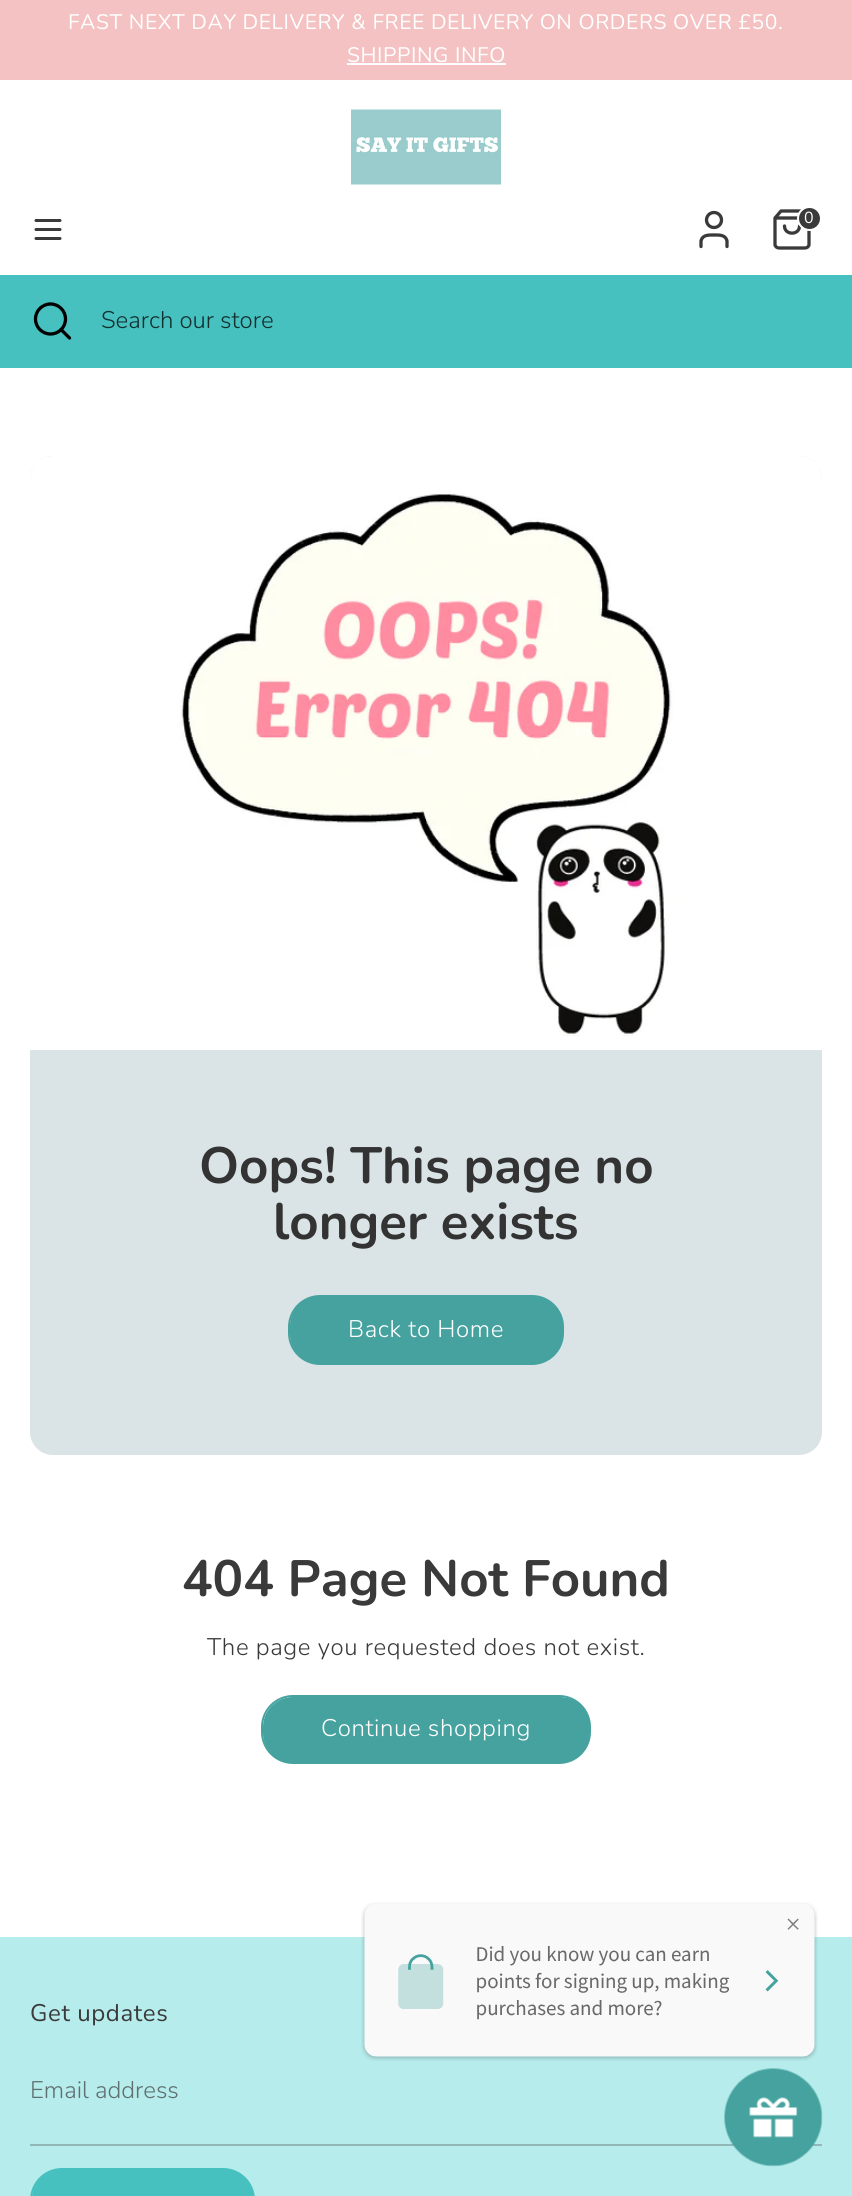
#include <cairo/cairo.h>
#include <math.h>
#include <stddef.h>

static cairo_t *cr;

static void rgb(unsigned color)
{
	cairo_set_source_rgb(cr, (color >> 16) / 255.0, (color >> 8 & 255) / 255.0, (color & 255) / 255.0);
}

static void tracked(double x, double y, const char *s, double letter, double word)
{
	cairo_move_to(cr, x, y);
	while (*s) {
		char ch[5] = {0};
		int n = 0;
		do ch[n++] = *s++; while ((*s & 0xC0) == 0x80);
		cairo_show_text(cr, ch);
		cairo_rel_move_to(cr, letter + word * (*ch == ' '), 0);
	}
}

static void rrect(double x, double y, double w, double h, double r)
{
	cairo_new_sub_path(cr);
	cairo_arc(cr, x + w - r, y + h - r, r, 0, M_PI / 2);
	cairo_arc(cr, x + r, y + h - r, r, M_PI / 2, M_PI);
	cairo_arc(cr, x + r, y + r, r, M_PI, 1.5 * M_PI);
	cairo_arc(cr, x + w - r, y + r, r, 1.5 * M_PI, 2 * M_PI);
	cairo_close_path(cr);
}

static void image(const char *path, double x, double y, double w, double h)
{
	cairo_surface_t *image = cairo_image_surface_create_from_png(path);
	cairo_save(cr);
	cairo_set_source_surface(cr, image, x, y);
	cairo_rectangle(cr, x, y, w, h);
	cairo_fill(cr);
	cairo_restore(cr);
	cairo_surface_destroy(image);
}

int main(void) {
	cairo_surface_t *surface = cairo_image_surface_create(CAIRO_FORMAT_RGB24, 852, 2196);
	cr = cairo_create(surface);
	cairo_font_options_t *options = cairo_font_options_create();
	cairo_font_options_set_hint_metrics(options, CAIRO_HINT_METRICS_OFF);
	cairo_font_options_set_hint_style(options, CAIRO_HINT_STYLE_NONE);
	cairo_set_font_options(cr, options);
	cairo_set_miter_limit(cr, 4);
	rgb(0xffffff);
	cairo_paint(cr);
	rgb(0xf4c2c2);
	cairo_rectangle(cr, 0, 0, 852, 80);
	cairo_fill(cr);
	rgb(0xffffff);
	cairo_rectangle(cr, 347, 63, 159, 2);
	cairo_fill(cr);
	image("img/1.png", 351, 109, 150, 76);
	cairo_new_path(cr);
	cairo_move_to(cr, 727, 246.5);
	cairo_line_to(cr, 727, 241);
	cairo_curve_to(cr, 725.5, 234.5, 719, 235, 714, 235);
	cairo_curve_to(cr, 709, 235, 702.5, 234.5, 701, 241);
	cairo_line_to(cr, 701, 246.5);
	rgb(0x3a3a3a);
	cairo_set_line_width(cr, 3.3);
	cairo_set_line_cap(cr, CAIRO_LINE_CAP_ROUND);
	cairo_set_line_join(cr, CAIRO_LINE_JOIN_ROUND);
	cairo_stroke(cr);
	cairo_arc(cr, 714, 220, 7.5, 0, 2 * M_PI);
	cairo_set_line_cap(cr, CAIRO_LINE_CAP_BUTT);
	cairo_set_line_join(cr, CAIRO_LINE_JOIN_MITER);
	cairo_stroke(cr);
	cairo_new_path(cr);
	cairo_move_to(cr, 781, 211);
	cairo_line_to(cr, 775, 218);
	cairo_line_to(cr, 775, 244.5);
	cairo_curve_to(cr, 775, 246.5, 777, 248, 779, 248);
	cairo_line_to(cr, 805, 248);
	cairo_curve_to(cr, 807, 248, 809, 246.5, 809, 244.5);
	cairo_line_to(cr, 809, 218);
	cairo_line_to(cr, 803, 211);
	cairo_close_path(cr);
	cairo_move_to(cr, 775, 218);
	cairo_line_to(cr, 809, 218);
	cairo_move_to(cr, 799.5, 226);
	cairo_curve_to(cr, 799.5, 235.5, 784.5, 235.5, 784.5, 226);
	cairo_set_line_cap(cr, CAIRO_LINE_CAP_ROUND);
	cairo_set_line_join(cr, CAIRO_LINE_JOIN_ROUND);
	cairo_stroke(cr);
	cairo_arc(cr, 809.5, 218.5, 11.5, 0, 2 * M_PI);
	cairo_fill_preserve(cr);
	rgb(0xffffff);
	cairo_set_line_width(cr, 2);
	cairo_set_line_cap(cr, CAIRO_LINE_CAP_BUTT);
	cairo_set_line_join(cr, CAIRO_LINE_JOIN_MITER);
	cairo_stroke(cr);
	cairo_new_path(cr);
	cairo_move_to(cr, 36, 229.5);
	cairo_line_to(cr, 60, 229.5);
	cairo_move_to(cr, 36, 220.5);
	cairo_line_to(cr, 60, 220.5);
	cairo_move_to(cr, 36, 238.5);
	cairo_line_to(cr, 60, 238.5);
	rgb(0x3a3a3a);
	cairo_set_line_width(cr, 3);
	cairo_set_line_cap(cr, CAIRO_LINE_CAP_ROUND);
	cairo_set_line_join(cr, CAIRO_LINE_JOIN_ROUND);
	cairo_stroke(cr);
	rgb(0x47c1bf);
	cairo_rectangle(cr, 0, 275, 852, 93);
	cairo_fill(cr);
	cairo_arc(cr, 50.5, 319, 15, 0, 2 * M_PI);
	rgb(0x000000);
	cairo_set_line_width(cr, 3.3);
	cairo_set_line_cap(cr, CAIRO_LINE_CAP_BUTT);
	cairo_set_line_join(cr, CAIRO_LINE_JOIN_MITER);
	cairo_stroke(cr);
	cairo_new_path(cr);
	cairo_move_to(cr, 69.5, 338);
	cairo_line_to(cr, 61, 329.5);
	cairo_set_line_cap(cr, CAIRO_LINE_CAP_ROUND);
	cairo_set_line_join(cr, CAIRO_LINE_JOIN_ROUND);
	cairo_stroke(cr);
	rgb(0xdae4e6);
	rrect(30, 456, 792, 999, 23);
	cairo_fill(cr);
	image("img/2.png", 30, 456, 792, 594);
	rrect(289, 1296, 274, 68, 31);
	rgb(0x45a29e);
	cairo_set_line_width(cr, 2);
	cairo_set_line_cap(cr, CAIRO_LINE_CAP_BUTT);
	cairo_set_line_join(cr, CAIRO_LINE_JOIN_MITER);
	cairo_stroke(cr);
	rrect(290, 1296, 273, 68, 30);
	cairo_fill(cr);
	rrect(262, 1696, 328, 67, 31);
	cairo_stroke(cr);
	rrect(263, 1697, 327, 66, 30);
	cairo_fill(cr);
	rgb(0xb7ecec);
	cairo_rectangle(cr, 0, 1937, 852, 259);
	cairo_fill(cr);
	rgb(0x91b7b7);
	cairo_rectangle(cr, 30, 2144, 792, 2);
	cairo_fill(cr);
	rrect(31, 2169, 223, 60, 31);
	rgb(0x47c1bf);
	cairo_stroke(cr);
	rrect(32, 2169, 222, 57, 30);
	cairo_fill(cr);
	image("img/3.png", 361, 1902, 457, 159);
	image("img/4.png", 724, 2068, 99, 99);
	cairo_select_font_face(cr, "Nunito", CAIRO_FONT_SLANT_NORMAL, CAIRO_FONT_WEIGHT_NORMAL);
	cairo_set_font_size(cr, 21);
	rgb(0xffffff);
	tracked(68, 29, "FAST NEXT DAY DELIVERY & FREE DELIVERY ON ORDERS OVER £50.", 0.6, 0);
	tracked(347, 62, "SHIPPING INFO", 0.6, 0);
	cairo_set_font_size(cr, 16);
	cairo_move_to(cr, 804, 223);
	cairo_show_text(cr, "0");
	cairo_select_font_face(cr, "Nunito Light", CAIRO_FONT_SLANT_NORMAL, CAIRO_FONT_WEIGHT_NORMAL);
	cairo_set_font_size(cr, 24);
	rgb(0x123030);
	cairo_move_to(cr, 101, 328);
	cairo_show_text(cr, "Search our store");
	cairo_select_font_face(cr, "Nunito", CAIRO_FONT_SLANT_NORMAL, CAIRO_FONT_WEIGHT_BOLD);
	cairo_set_font_size(cr, 51);
	rgb(0x333333);
	cairo_move_to(cr, 199, 1183);
	cairo_show_text(cr, "Oops! This page no");
	cairo_move_to(cr, 273, 1239);
	cairo_show_text(cr, "longer exists");
	cairo_select_font_face(cr, "Nunito Light", CAIRO_FONT_SLANT_NORMAL, CAIRO_FONT_WEIGHT_NORMAL);
	cairo_set_font_size(cr, 24);
	rgb(0xffffff);
	tracked(348, 1337, "Back to Home", 0.6, 0);
	cairo_select_font_face(cr, "Nunito", CAIRO_FONT_SLANT_NORMAL, CAIRO_FONT_WEIGHT_BOLD);
	cairo_set_font_size(cr, 51);
	rgb(0x3a3a3a);
	cairo_move_to(cr, 182, 1596);
	cairo_show_text(cr, "404 Page Not Found");
	cairo_select_font_face(cr, "Nunito Light", CAIRO_FONT_SLANT_NORMAL, CAIRO_FONT_WEIGHT_NORMAL);
	cairo_set_font_size(cr, 24);
	tracked(207, 1655, "The page you requested does not exist.", 0.6, 0);
	rgb(0xffffff);
	tracked(321, 1736, "Continue shopping", 0.6, 0);
	cairo_select_font_face(cr, "Nunito", CAIRO_FONT_SLANT_NORMAL, CAIRO_FONT_WEIGHT_NORMAL);
	rgb(0x3a3a3a);
	tracked(30, 2021, "Get updates", 0.6, 0);
	cairo_select_font_face(cr, "Nunito Light", CAIRO_FONT_SLANT_NORMAL, CAIRO_FONT_WEIGHT_NORMAL);
	rgb(0x606f6f);
	cairo_move_to(cr, 30, 2098);
	cairo_show_text(cr, "Email address");
	cairo_surface_write_to_png(surface, "page.png");
	cairo_font_options_destroy(options);
	cairo_destroy(cr);
	cairo_surface_destroy(surface);
	return 0;
}
